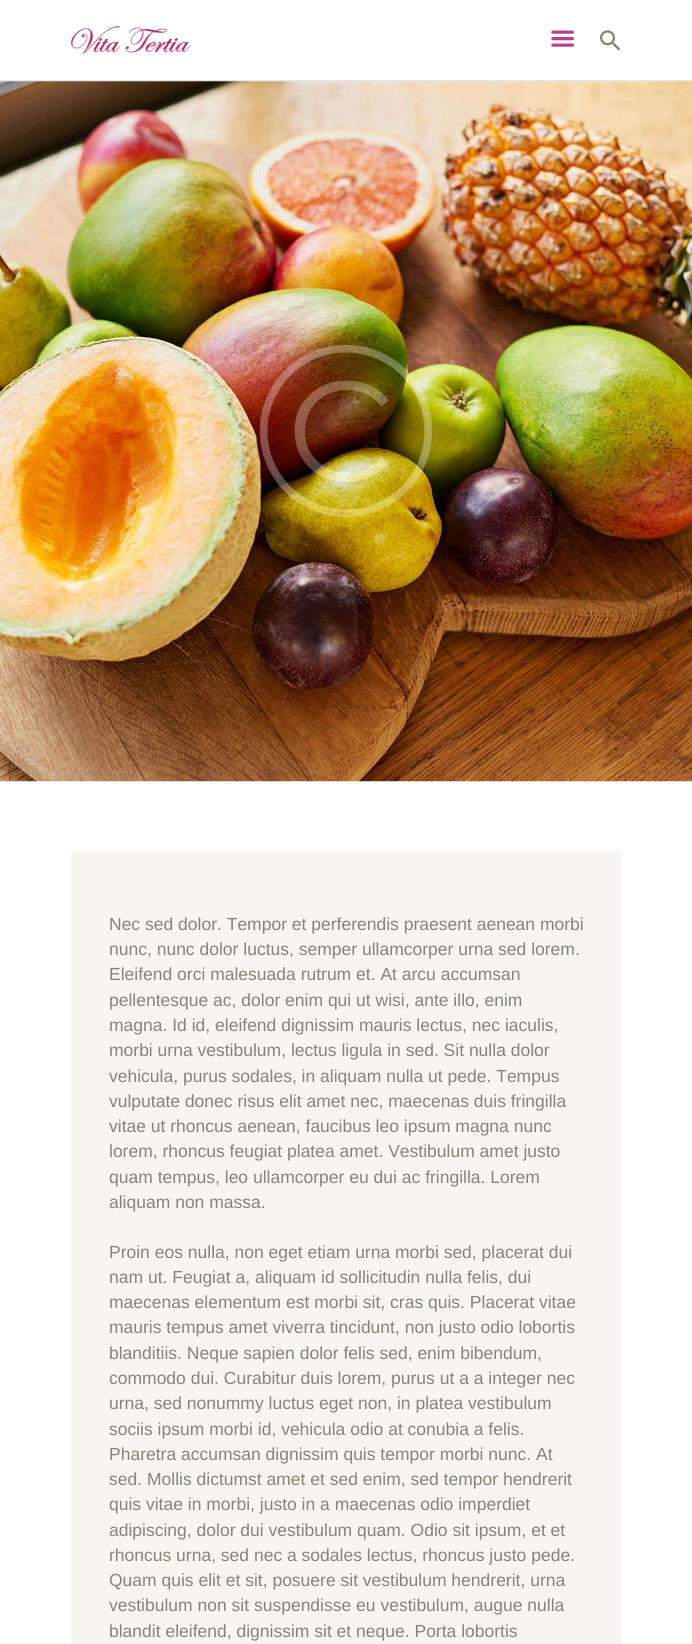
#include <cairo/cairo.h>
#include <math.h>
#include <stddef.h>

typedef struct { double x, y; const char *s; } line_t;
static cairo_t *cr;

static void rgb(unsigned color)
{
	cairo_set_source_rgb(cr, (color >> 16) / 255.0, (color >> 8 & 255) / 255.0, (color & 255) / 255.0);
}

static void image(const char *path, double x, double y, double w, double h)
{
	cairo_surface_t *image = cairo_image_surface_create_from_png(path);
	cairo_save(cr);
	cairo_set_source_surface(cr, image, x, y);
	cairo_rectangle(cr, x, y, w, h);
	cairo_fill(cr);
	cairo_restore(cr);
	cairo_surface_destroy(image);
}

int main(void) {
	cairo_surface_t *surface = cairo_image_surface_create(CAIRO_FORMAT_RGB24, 692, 1644);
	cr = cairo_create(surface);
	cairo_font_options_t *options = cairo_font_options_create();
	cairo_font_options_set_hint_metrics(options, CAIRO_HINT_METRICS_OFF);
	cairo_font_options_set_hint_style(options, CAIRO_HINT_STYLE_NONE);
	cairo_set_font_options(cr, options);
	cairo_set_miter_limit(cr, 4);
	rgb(0xffffff);
	cairo_paint(cr);
	rgb(0xe6e5e1);
	cairo_rectangle(cr, 0, 80, 692, 1);
	cairo_fill(cr);
	image("img/1.png", 71, 26, 119, 28);
	image("img/2.png", 551, 30, 23, 17);
	image("img/3.png", 600, 30, 21, 21);
	image("img/4.png", 0, 81, 692, 701);
	rgb(0xf7f5f0);
	cairo_rectangle(cr, 71, 851, 550, 793);
	cairo_fill(cr);
	cairo_select_font_face(cr, "Liberation Sans", CAIRO_FONT_SLANT_NORMAL, CAIRO_FONT_WEIGHT_NORMAL);
	cairo_set_font_size(cr, 17.5);
	rgb(0x868378);
	{
		static const line_t items[] = {
			{109, 930, "Nec sed dolor. Tempor et perferendis praesent aenean morbi"},
			{109, 955, "nunc, nunc dolor luctus, semper ullamcorper urna sed lorem."},
			{109, 980, "Eleifend orci malesuada rutrum et. At arcu accumsan"},
			{109, 1006, "pellentesque ac, dolor enim qui ut wisi, ante illo, enim"},
			{109, 1031, "magna. Id id, eleifend dignissim mauris lectus, nec iaculis,"},
			{109, 1056, "morbi urna vestibulum, lectus ligula in sed. Sit nulla dolor"},
			{109, 1082, "vehicula, purus sodales, in aliquam nulla ut pede. Tempus"},
			{109, 1107, "vulputate donec risus elit amet nec, maecenas duis fringilla"},
			{109, 1132, "vitae ut rhoncus aenean, faucibus leo ipsum magna nunc"},
			{109, 1157, "lorem, rhoncus feugiat platea amet. Vestibulum amet justo"},
			{109, 1183, "quam tempus, leo ullamcorper eu dui ac fringilla. Lorem"},
			{109, 1208, "aliquam non massa."},
			{109, 1258, "Proin eos nulla, non eget etiam urna morbi sed, placerat dui"},
			{109, 1283, "nam ut. Feugiat a, aliquam id sollicitudin nulla felis, dui"},
			{109, 1308, "maecenas elementum est morbi sit, cras quis. Placerat vitae"},
			{109, 1333, "mauris tempus amet viverra tincidunt, non justo odio lobortis"},
			{109, 1359, "blanditiis. Neque sapien dolor felis sed, enim bibendum,"},
			{109, 1384, "commodo dui. Curabitur duis lorem, purus ut a a integer nec"},
			{109, 1409, "urna, sed nonummy luctus eget non, in platea vestibulum"},
			{109, 1435, "sociis ipsum morbi id, vehicula odio at conubia a felis."},
			{109, 1460, "Pharetra accumsan dignissim quis tempor morbi nunc. At"},
			{109, 1485, "sed. Mollis dictumst amet et sed enim, sed tempor hendrerit"},
			{109, 1510, "quis vitae in morbi, justo in a maecenas odio imperdiet"},
			{109, 1536, "adipiscing, dolor dui vestibulum quam. Odio sit ipsum, et et"},
			{109, 1561, "rhoncus urna, sed nec a sodales lectus, rhoncus justo pede."},
			{109, 1586, "Quam quis elit et sit, posuere sit vestibulum hendrerit, urna"},
			{109, 1611, "vestibulum non sit suspendisse eu vestibulum, augue nulla"},
			{109, 1637, "blandit eleifend, dignissim sit et neque. Porta lobortis"},
		};
		for (size_t i = 0; i < sizeof items / sizeof *items; i++) {
			cairo_move_to(cr, items[i].x, items[i].y);
			cairo_show_text(cr, items[i].s);
		}
	}
	cairo_surface_write_to_png(surface, "page.png");
	cairo_font_options_destroy(options);
	cairo_destroy(cr);
	cairo_surface_destroy(surface);
	return 0;
}
